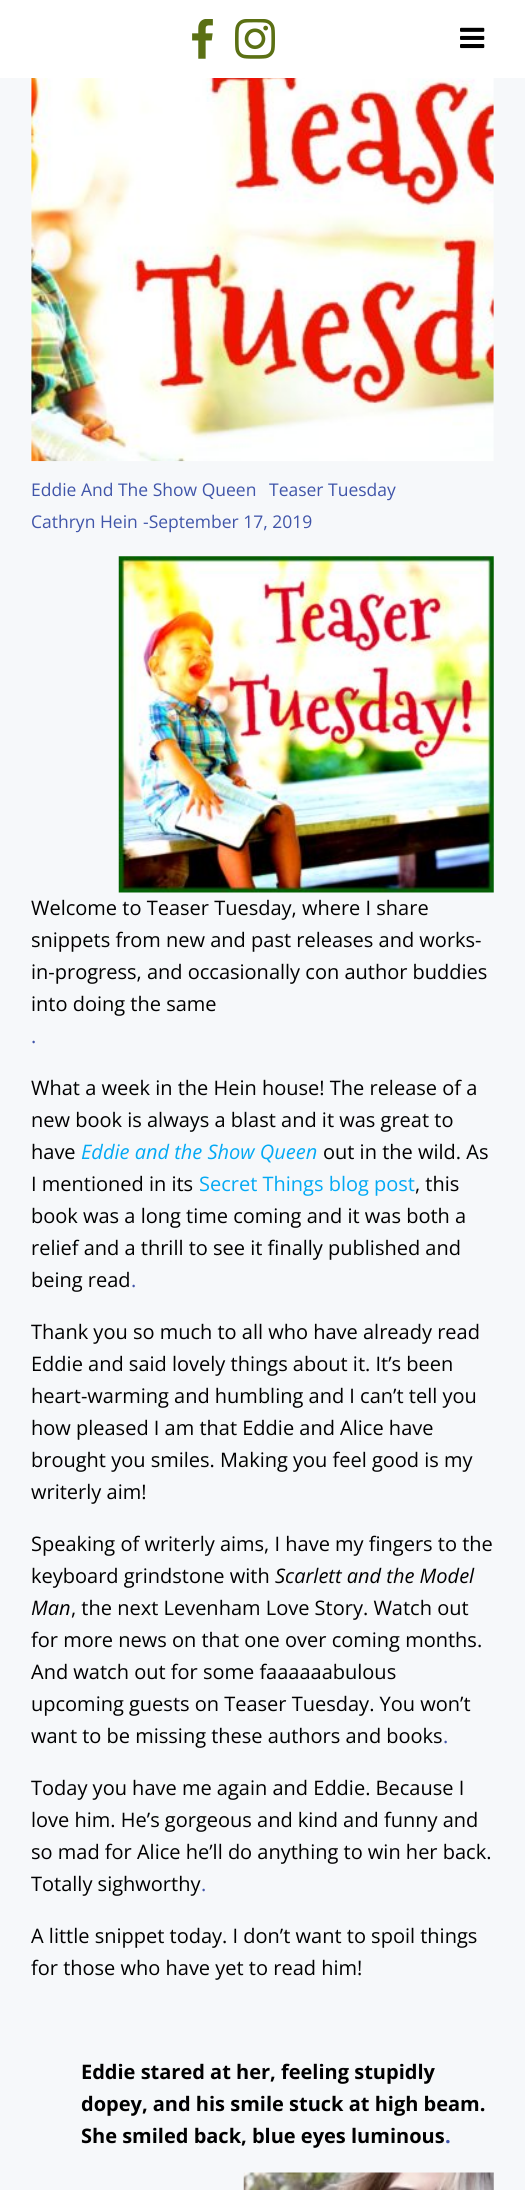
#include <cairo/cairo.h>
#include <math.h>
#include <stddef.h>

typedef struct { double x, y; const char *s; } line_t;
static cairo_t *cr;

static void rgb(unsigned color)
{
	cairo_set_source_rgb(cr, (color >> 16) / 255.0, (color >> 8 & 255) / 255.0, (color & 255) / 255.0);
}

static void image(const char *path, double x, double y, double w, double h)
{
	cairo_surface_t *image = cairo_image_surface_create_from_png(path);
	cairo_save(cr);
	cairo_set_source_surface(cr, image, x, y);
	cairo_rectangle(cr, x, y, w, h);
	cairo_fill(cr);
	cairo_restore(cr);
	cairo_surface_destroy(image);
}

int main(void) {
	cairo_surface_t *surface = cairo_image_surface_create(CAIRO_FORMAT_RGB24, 525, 2190);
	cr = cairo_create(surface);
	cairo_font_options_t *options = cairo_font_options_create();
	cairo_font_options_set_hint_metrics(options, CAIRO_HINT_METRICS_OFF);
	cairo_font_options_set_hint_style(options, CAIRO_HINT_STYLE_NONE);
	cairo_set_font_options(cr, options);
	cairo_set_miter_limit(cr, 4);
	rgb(0xf6f8fa);
	cairo_paint(cr);
	rgb(0xffffff);
	cairo_rectangle(cr, 0, 0, 525, 78);
	cairo_fill(cr);
	image("img/1.png", 192, 19, 21, 40);
	image("img/2.png", 235, 19, 40, 40);
	image("img/3.png", 460, 27, 25, 22);
	image("img/4.png", 31, 78, 463, 384);
	image("img/5.png", 118, 556, 376, 337);
	image("img/6.png", 243, 2172, 251, 18);
	cairo_select_font_face(cr, "Open Sans", CAIRO_FONT_SLANT_NORMAL, CAIRO_FONT_WEIGHT_NORMAL);
	cairo_set_font_size(cr, 17.5);
	rgb(0x4055a9);
	{
		static const line_t items[] = {
			{31, 496, "Eddie And The Show Queen"},
			{269, 496, "Teaser Tuesday"},
			{31, 528, "Cathryn Hein"},
			{143, 528, "-September 17, 2019"},
		};
		for (size_t i = 0; i < sizeof items / sizeof *items; i++) {
			cairo_move_to(cr, items[i].x, items[i].y);
			cairo_show_text(cr, items[i].s);
		}
	}
	cairo_set_font_size(cr, 20);
	rgb(0x000000);
	{
		static const line_t items[] = {
			{31, 915, "Welcome to Teaser Tuesday, where I share"},
			{31, 947, "snippets from new and past releases and works-"},
			{31, 979, "in-progress, and occasionally con author buddies"},
			{31, 1011, "into doing the same"},
		};
		for (size_t i = 0; i < sizeof items / sizeof *items; i++) {
			cairo_move_to(cr, items[i].x, items[i].y);
			cairo_show_text(cr, items[i].s);
		}
	}
	rgb(0x4055a9);
	cairo_move_to(cr, 31, 1043);
	cairo_show_text(cr, ".");
	rgb(0x000000);
	{
		static const line_t items[] = {
			{31, 1095, "What a week in the Hein house! The release of a"},
			{31, 1127, "new book is always a blast and it was great to"},
			{31, 1159, "have"},
		};
		for (size_t i = 0; i < sizeof items / sizeof *items; i++) {
			cairo_move_to(cr, items[i].x, items[i].y);
			cairo_show_text(cr, items[i].s);
		}
	}
	cairo_select_font_face(cr, "Open Sans", CAIRO_FONT_SLANT_ITALIC, CAIRO_FONT_WEIGHT_NORMAL);
	rgb(0x03a9f4);
	cairo_move_to(cr, 81, 1159);
	cairo_show_text(cr, "Eddie and the Show Queen");
	cairo_select_font_face(cr, "Open Sans", CAIRO_FONT_SLANT_NORMAL, CAIRO_FONT_WEIGHT_NORMAL);
	rgb(0x000000);
	cairo_move_to(cr, 323, 1159);
	cairo_show_text(cr, "out in the wild. As");
	cairo_move_to(cr, 31, 1191);
	cairo_show_text(cr, "I mentioned in its");
	rgb(0x03a9f4);
	cairo_move_to(cr, 199, 1191);
	cairo_show_text(cr, "Secret Things blog post");
	rgb(0x000000);
	{
		static const line_t items[] = {
			{415, 1191, ", this"},
			{31, 1223, "book was a long time coming and it was both a"},
			{31, 1255, "relief and a thrill to see it finally published and"},
			{31, 1287, "being read"},
		};
		for (size_t i = 0; i < sizeof items / sizeof *items; i++) {
			cairo_move_to(cr, items[i].x, items[i].y);
			cairo_show_text(cr, items[i].s);
		}
	}
	rgb(0x4055a9);
	cairo_move_to(cr, 131, 1287);
	cairo_show_text(cr, ".");
	rgb(0x000000);
	{
		static const line_t items[] = {
			{31, 1339, "Thank you so much to all who have already read"},
			{31, 1371, "Eddie and said lovely things about it. It’s been"},
			{31, 1403, "heart-warming and humbling and I can’t tell you"},
			{31, 1435, "how pleased I am that Eddie and Alice have"},
			{31, 1467, "brought you smiles. Making you feel good is my"},
			{31, 1499, "writerly aim!"},
			{31, 1551, "Speaking of writerly aims, I have my fingers to the"},
			{31, 1583, "keyboard grindstone with"},
		};
		for (size_t i = 0; i < sizeof items / sizeof *items; i++) {
			cairo_move_to(cr, items[i].x, items[i].y);
			cairo_show_text(cr, items[i].s);
		}
	}
	cairo_select_font_face(cr, "Open Sans", CAIRO_FONT_SLANT_ITALIC, CAIRO_FONT_WEIGHT_NORMAL);
	cairo_move_to(cr, 275, 1583);
	cairo_show_text(cr, "Scarlett and the Model");
	cairo_move_to(cr, 31, 1615);
	cairo_show_text(cr, "Man");
	cairo_select_font_face(cr, "Open Sans", CAIRO_FONT_SLANT_NORMAL, CAIRO_FONT_WEIGHT_NORMAL);
	{
		static const line_t items[] = {
			{71, 1615, ", the next Levenham Love Story. Watch out"},
			{31, 1647, "for more news on that one over coming months."},
			{31, 1679, "And watch out for some faaaaaabulous"},
			{31, 1711, "upcoming guests on Teaser Tuesday. You won’t"},
			{31, 1743, "want to be missing these authors and books"},
		};
		for (size_t i = 0; i < sizeof items / sizeof *items; i++) {
			cairo_move_to(cr, items[i].x, items[i].y);
			cairo_show_text(cr, items[i].s);
		}
	}
	rgb(0x4055a9);
	cairo_move_to(cr, 443, 1743);
	cairo_show_text(cr, ".");
	rgb(0x000000);
	{
		static const line_t items[] = {
			{31, 1795, "Today you have me again and Eddie. Because I"},
			{31, 1827, "love him. He’s gorgeous and kind and funny and"},
			{31, 1859, "so mad for Alice he’ll do anything to win her back."},
			{31, 1891, "Totally sighworthy"},
		};
		for (size_t i = 0; i < sizeof items / sizeof *items; i++) {
			cairo_move_to(cr, items[i].x, items[i].y);
			cairo_show_text(cr, items[i].s);
		}
	}
	rgb(0x4055a9);
	cairo_move_to(cr, 201, 1891);
	cairo_show_text(cr, ".");
	rgb(0x000000);
	cairo_move_to(cr, 31, 1943);
	cairo_show_text(cr, "A little snippet today. I don’t want to spoil things");
	cairo_move_to(cr, 31, 1975);
	cairo_show_text(cr, "for those who have yet to read him!");
	cairo_select_font_face(cr, "Open Sans", CAIRO_FONT_SLANT_NORMAL, CAIRO_FONT_WEIGHT_BOLD);
	{
		static const line_t items[] = {
			{81, 2079, "Eddie stared at her, feeling stupidly"},
			{81, 2111, "dopey, and his smile stuck at high beam."},
			{81, 2143, "She smiled back, blue eyes luminous"},
		};
		for (size_t i = 0; i < sizeof items / sizeof *items; i++) {
			cairo_move_to(cr, items[i].x, items[i].y);
			cairo_show_text(cr, items[i].s);
		}
	}
	rgb(0x4055a9);
	cairo_move_to(cr, 445, 2143);
	cairo_show_text(cr, ".");
	cairo_surface_write_to_png(surface, "page.png");
	cairo_font_options_destroy(options);
	cairo_destroy(cr);
	cairo_surface_destroy(surface);
	return 0;
}
